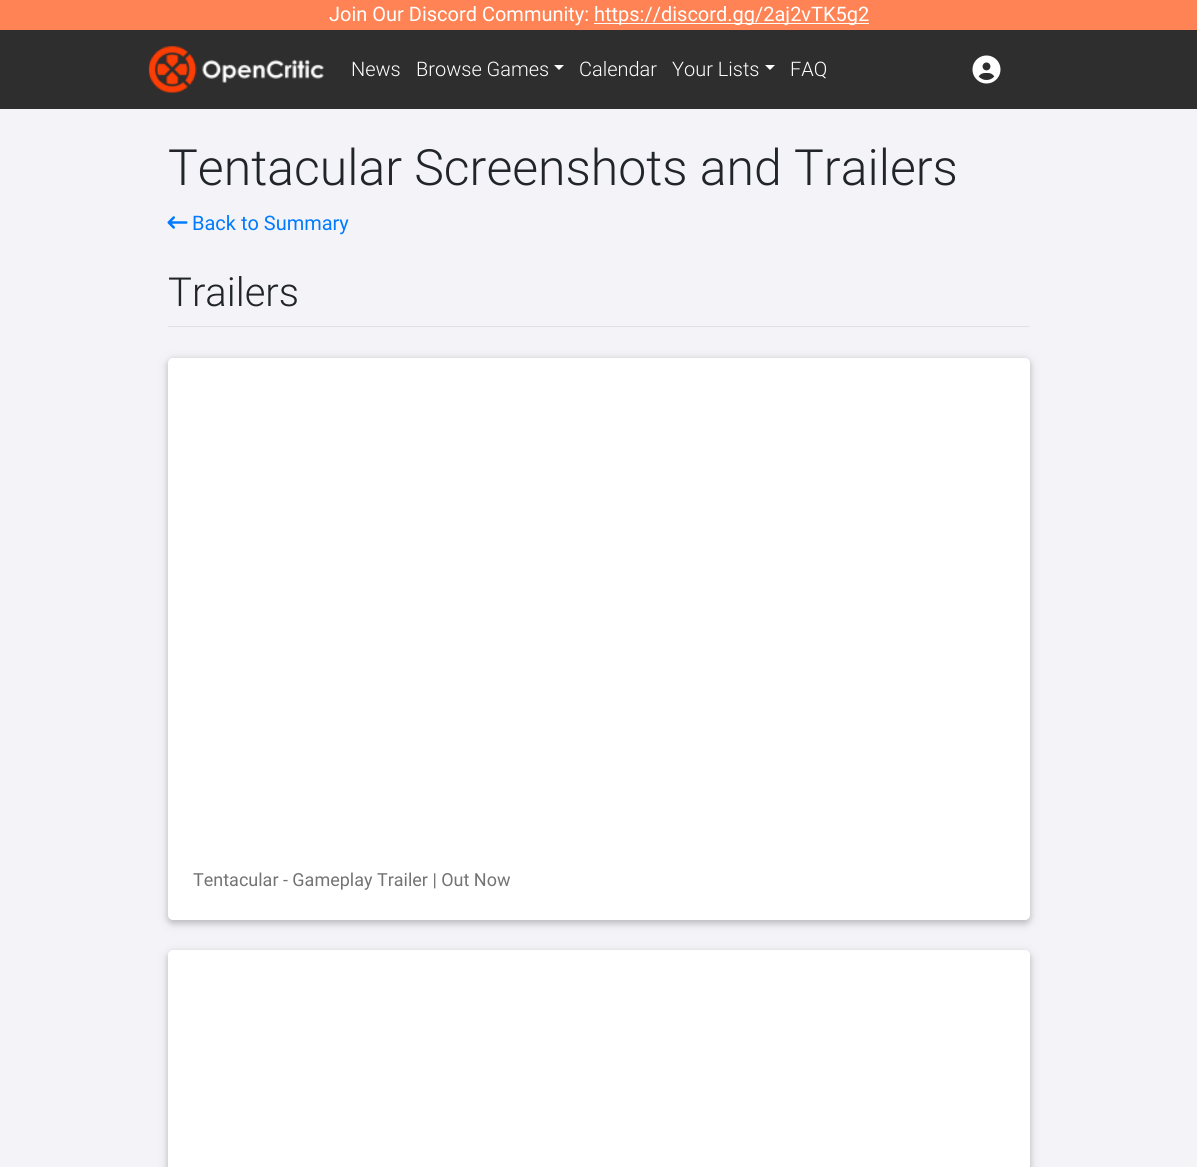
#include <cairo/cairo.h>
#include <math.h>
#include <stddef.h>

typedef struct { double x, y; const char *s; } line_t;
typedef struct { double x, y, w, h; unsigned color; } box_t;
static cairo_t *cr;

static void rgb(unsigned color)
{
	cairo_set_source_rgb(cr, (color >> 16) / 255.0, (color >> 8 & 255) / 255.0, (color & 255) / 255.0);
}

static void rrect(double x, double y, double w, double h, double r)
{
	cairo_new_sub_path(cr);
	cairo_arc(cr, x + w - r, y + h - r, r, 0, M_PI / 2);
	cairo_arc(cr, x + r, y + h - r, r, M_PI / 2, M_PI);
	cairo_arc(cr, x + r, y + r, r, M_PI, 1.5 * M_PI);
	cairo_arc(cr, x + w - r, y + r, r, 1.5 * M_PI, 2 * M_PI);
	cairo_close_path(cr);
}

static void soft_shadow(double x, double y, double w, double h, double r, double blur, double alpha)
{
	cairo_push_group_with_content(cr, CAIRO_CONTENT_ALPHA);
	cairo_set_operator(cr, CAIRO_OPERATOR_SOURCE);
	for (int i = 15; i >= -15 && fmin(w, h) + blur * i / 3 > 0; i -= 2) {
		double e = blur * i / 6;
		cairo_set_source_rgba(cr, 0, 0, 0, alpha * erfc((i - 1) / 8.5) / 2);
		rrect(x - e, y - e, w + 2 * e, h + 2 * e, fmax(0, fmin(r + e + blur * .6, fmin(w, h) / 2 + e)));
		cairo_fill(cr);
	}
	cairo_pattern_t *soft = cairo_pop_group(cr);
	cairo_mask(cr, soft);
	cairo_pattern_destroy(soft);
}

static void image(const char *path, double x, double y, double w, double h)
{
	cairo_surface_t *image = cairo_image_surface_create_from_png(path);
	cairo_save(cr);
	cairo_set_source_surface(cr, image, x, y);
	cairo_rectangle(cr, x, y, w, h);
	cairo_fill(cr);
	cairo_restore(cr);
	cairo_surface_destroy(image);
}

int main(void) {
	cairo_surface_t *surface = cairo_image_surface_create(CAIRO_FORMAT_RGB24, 1197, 1167);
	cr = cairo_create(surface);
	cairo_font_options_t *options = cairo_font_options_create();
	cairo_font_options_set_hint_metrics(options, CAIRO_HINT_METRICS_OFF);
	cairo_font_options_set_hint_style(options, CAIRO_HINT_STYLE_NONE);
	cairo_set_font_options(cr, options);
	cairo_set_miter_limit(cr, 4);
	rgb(0xf4f4f8);
	cairo_paint(cr);
	{
		static const box_t items[] = {
			{0, 0, 1197, 30, 0xff8354},
			{594, 23, 275, 1, 0xffffff},
			{0, 30, 1197, 79, 0x2e2e2e},
		};
		for (size_t i = 0; i < sizeof items / sizeof *items; i++) {
			rgb(items[i].color);
			cairo_rectangle(cr, items[i].x, items[i].y, items[i].w, items[i].h);
			cairo_fill(cr);
		}
	}
	image("img/1.png", 148, 46, 176, 47);
	rgb(0xffffff);
	cairo_new_path(cr);
	cairo_move_to(cr, 554, 65);
	cairo_line_to(cr, 564, 65);
	cairo_line_to(cr, 559, 70);
	cairo_close_path(cr);
	cairo_fill(cr);
	cairo_new_path(cr);
	cairo_move_to(cr, 765, 65);
	cairo_line_to(cr, 775, 65);
	cairo_line_to(cr, 770, 70);
	cairo_close_path(cr);
	cairo_fill(cr);
	image("img/2.png", 972, 55, 29, 29);
	image("img/3.png", 167, 216, 21, 13);
	rgb(0xdee2e6);
	cairo_rectangle(cr, 168, 326, 862, 1);
	cairo_fill(cr);
	rgb(0x000000);
	soft_shadow(168, 360, 862, 563, 5, 6, 0.12);
	soft_shadow(168, 360, 862, 563, 5, 3, 0.16);
	rgb(0xffffff);
	rrect(168, 358, 862, 562, 5);
	cairo_fill(cr);
	rgb(0x000000);
	soft_shadow(168, 953, 862, 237, 5, 6, 0.12);
	soft_shadow(168, 953, 862, 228, 5, 3, 0.16);
	rgb(0xffffff);
	rrect(168, 950, 862, 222, 5);
	cairo_fill(cr);
	cairo_select_font_face(cr, "Roboto", CAIRO_FONT_SLANT_NORMAL, CAIRO_FONT_WEIGHT_NORMAL);
	cairo_set_font_size(cr, 20);
	cairo_move_to(cr, 329, 21);
	cairo_show_text(cr, "Join Our Discord Community:");
	cairo_move_to(cr, 594, 21);
	cairo_show_text(cr, "https://discord.gg/2aj2vTK5g2");
	cairo_select_font_face(cr, "Roboto Light", CAIRO_FONT_SLANT_NORMAL, CAIRO_FONT_WEIGHT_NORMAL);
	{
		static const line_t items[] = {
			{351, 76, "News"},
			{416, 76, "Browse Games"},
			{579, 76, "Calendar"},
			{672, 76, "Your Lists"},
			{790, 76, "FAQ"},
		};
		for (size_t i = 0; i < sizeof items / sizeof *items; i++) {
			cairo_move_to(cr, items[i].x, items[i].y);
			cairo_show_text(cr, items[i].s);
		}
	}
	cairo_set_font_size(cr, 50);
	rgb(0x212529);
	cairo_move_to(cr, 168, 185);
	cairo_show_text(cr, "Tentacular Screenshots and Trailers");
	cairo_select_font_face(cr, "Roboto", CAIRO_FONT_SLANT_NORMAL, CAIRO_FONT_WEIGHT_NORMAL);
	cairo_set_font_size(cr, 20);
	rgb(0x007bff);
	cairo_move_to(cr, 192, 230);
	cairo_show_text(cr, "Back to Summary");
	cairo_select_font_face(cr, "Roboto Light", CAIRO_FONT_SLANT_NORMAL, CAIRO_FONT_WEIGHT_NORMAL);
	cairo_set_font_size(cr, 40);
	rgb(0x212529);
	cairo_move_to(cr, 168, 306);
	cairo_show_text(cr, "Trailers");
	cairo_select_font_face(cr, "Roboto", CAIRO_FONT_SLANT_NORMAL, CAIRO_FONT_WEIGHT_NORMAL);
	cairo_set_font_size(cr, 18);
	rgb(0x747373);
	cairo_move_to(cr, 193, 886);
	cairo_show_text(cr, "Tentacular - Gameplay Trailer | Out Now");
	cairo_surface_write_to_png(surface, "page.png");
	cairo_font_options_destroy(options);
	cairo_destroy(cr);
	cairo_surface_destroy(surface);
	return 0;
}
